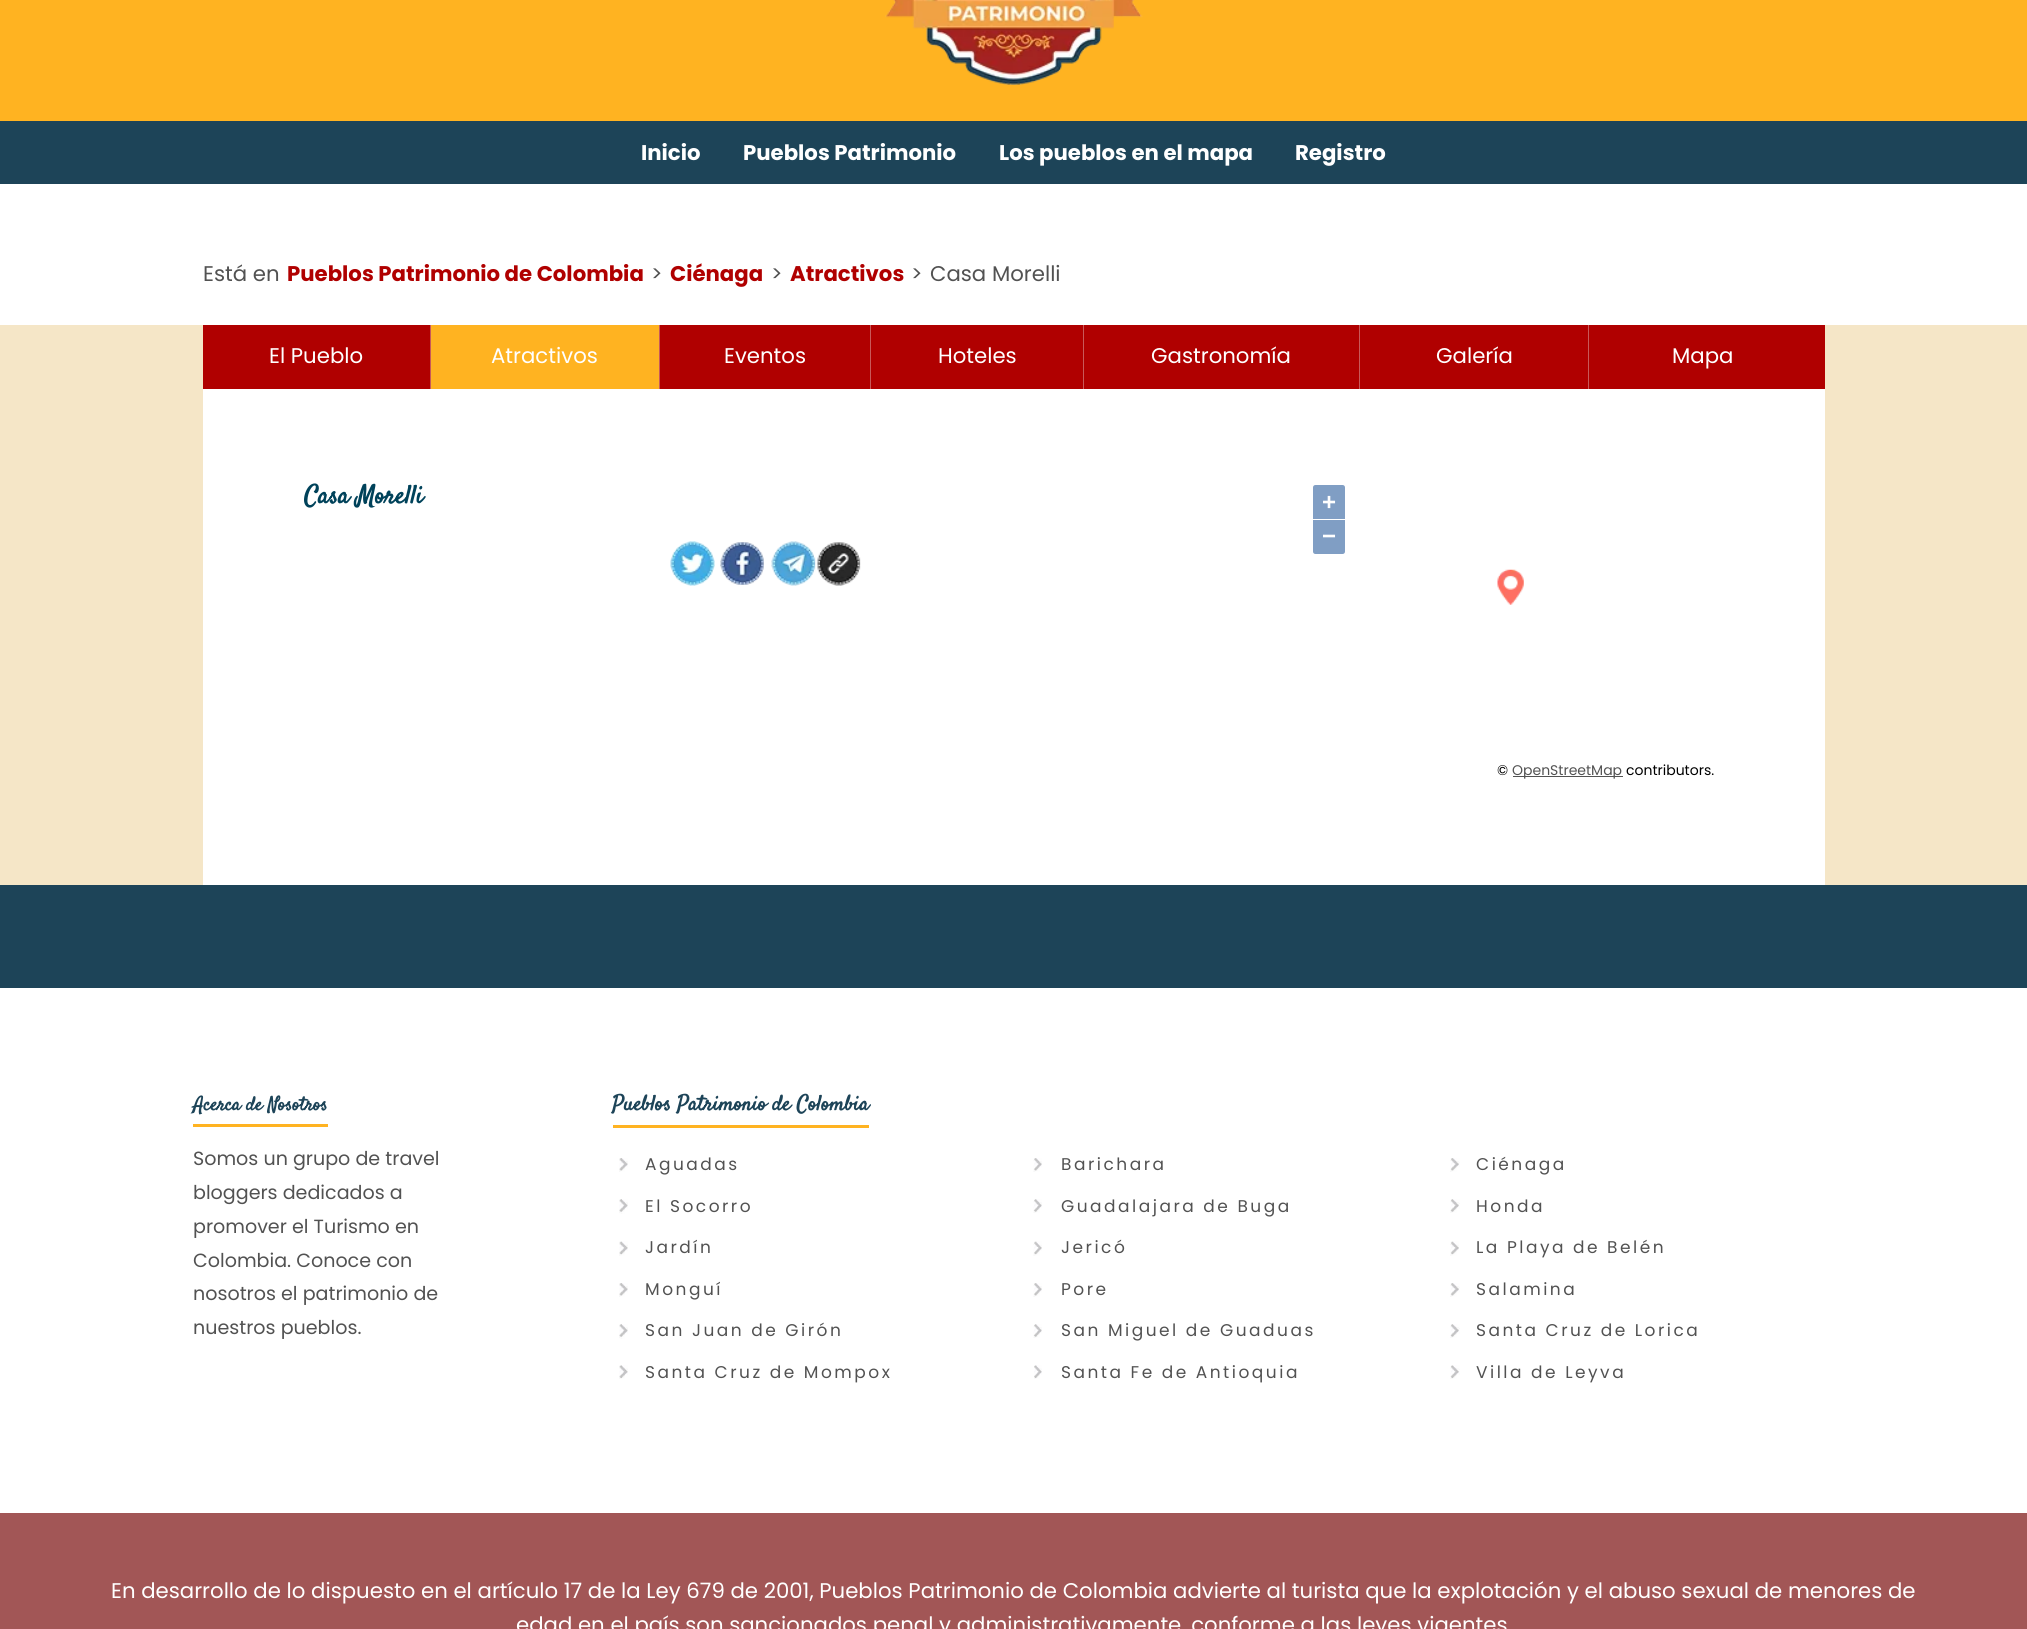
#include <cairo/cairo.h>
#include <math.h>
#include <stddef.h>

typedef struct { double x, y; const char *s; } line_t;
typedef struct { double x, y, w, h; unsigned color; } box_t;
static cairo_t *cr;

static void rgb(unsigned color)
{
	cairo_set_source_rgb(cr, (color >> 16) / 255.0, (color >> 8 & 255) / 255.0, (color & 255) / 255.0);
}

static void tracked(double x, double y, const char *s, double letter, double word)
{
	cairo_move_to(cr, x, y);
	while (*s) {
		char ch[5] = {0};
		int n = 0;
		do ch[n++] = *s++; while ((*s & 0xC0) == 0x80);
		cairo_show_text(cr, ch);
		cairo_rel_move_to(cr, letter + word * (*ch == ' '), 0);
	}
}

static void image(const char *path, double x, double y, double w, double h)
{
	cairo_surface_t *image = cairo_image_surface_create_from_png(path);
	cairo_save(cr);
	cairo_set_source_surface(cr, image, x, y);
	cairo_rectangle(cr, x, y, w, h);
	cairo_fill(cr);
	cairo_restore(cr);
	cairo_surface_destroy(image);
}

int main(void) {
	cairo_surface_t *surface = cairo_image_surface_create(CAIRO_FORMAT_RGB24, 2027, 1629);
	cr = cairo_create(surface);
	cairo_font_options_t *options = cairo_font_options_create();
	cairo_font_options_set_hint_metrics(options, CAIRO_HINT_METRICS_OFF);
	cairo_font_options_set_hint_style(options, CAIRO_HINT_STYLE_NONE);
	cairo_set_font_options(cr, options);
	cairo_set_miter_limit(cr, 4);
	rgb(0xf5e6c7);
	cairo_paint(cr);
	rgb(0xffb321);
	cairo_rectangle(cr, 0, 0, 2027, 121);
	cairo_fill(cr);
	image("img/1.png", 885, 0, 258, 85);
	{
		static const box_t items[] = {
			{0, 121, 2027, 63, 0x1d4458},
			{0, 184, 2027, 141, 0xffffff},
			{203, 325, 1622, 64, 0xb00000},
			{430, 325, 1, 64, 0xc85959},
			{431, 325, 228, 64, 0xffb321},
			{659, 325, 1, 64, 0xc85959},
			{870, 325, 1, 64, 0xc85959},
			{1083, 325, 1, 64, 0xc85959},
			{1359, 325, 1, 64, 0xc85959},
			{1588, 325, 1, 64, 0xc85959},
			{203, 389, 1622, 496, 0xffffff},
		};
		for (size_t i = 0; i < sizeof items / sizeof *items; i++) {
			rgb(items[i].color);
			cairo_rectangle(cr, items[i].x, items[i].y, items[i].w, items[i].h);
			cairo_fill(cr);
		}
	}
	image("img/2.png", 670, 541, 45, 45);
	image("img/3.png", 720, 542, 44, 43);
	image("img/4.png", 771, 541, 45, 45);
	image("img/5.png", 817, 542, 44, 44);
	rgb(0x809ec4);
	cairo_new_path(cr);
	cairo_move_to(cr, 1315.5, 485);
	cairo_line_to(cr, 1342.5, 485);
	cairo_curve_to(cr, 1344, 485, 1345, 486, 1345, 487.5);
	cairo_line_to(cr, 1345, 519);
	cairo_line_to(cr, 1313, 519);
	cairo_line_to(cr, 1313, 487.5);
	cairo_curve_to(cr, 1313, 486, 1314, 485, 1315.5, 485);
	cairo_close_path(cr);
	cairo_fill(cr);
	cairo_new_path(cr);
	cairo_move_to(cr, 1313, 520);
	cairo_line_to(cr, 1345, 520);
	cairo_line_to(cr, 1345, 551.5);
	cairo_curve_to(cr, 1345, 553, 1344, 554, 1342.5, 554);
	cairo_line_to(cr, 1315.5, 554);
	cairo_curve_to(cr, 1314, 554, 1313, 553, 1313, 551.5);
	cairo_close_path(cr);
	cairo_fill(cr);
	rgb(0x525252);
	cairo_rectangle(cr, 1513, 776, 110, 1);
	cairo_fill(cr);
	image("img/6.png", 1497, 569, 27, 36);
	{
		static const box_t items[] = {
			{0, 885, 2027, 103, 0x1d4458},
			{0, 988, 2027, 525, 0xffffff},
			{193, 1124, 135, 3, 0xffb321},
			{613, 1125, 256, 3, 0xffb321},
		};
		for (size_t i = 0; i < sizeof items / sizeof *items; i++) {
			rgb(items[i].color);
			cairo_rectangle(cr, items[i].x, items[i].y, items[i].w, items[i].h);
			cairo_fill(cr);
		}
	}
	image("img/7.png", 619, 1158, 9, 14);
	image("img/8.png", 1033, 1158, 9, 14);
	image("img/9.png", 1450, 1158, 10, 14);
	image("img/10.png", 619, 1199, 9, 15);
	image("img/11.png", 1033, 1199, 9, 14);
	image("img/12.png", 1450, 1199, 10, 14);
	image("img/13.png", 619, 1241, 9, 15);
	image("img/14.png", 1033, 1241, 9, 15);
	image("img/15.png", 1450, 1241, 9, 15);
	image("img/7.png", 619, 1283, 9, 14);
	image("img/8.png", 1033, 1283, 9, 14);
	image("img/9.png", 1450, 1283, 10, 14);
	image("img/10.png", 619, 1324, 9, 15);
	image("img/11.png", 1033, 1324, 9, 14);
	image("img/12.png", 1450, 1324, 10, 14);
	image("img/16.png", 619, 1365, 9, 14);
	image("img/17.png", 1034, 1365, 8, 14);
	image("img/18.png", 1450, 1365, 10, 14);
	rgb(0xa25656);
	cairo_rectangle(cr, 0, 1513, 2027, 116);
	cairo_fill(cr);
	cairo_select_font_face(cr, "Poppins", CAIRO_FONT_SLANT_NORMAL, CAIRO_FONT_WEIGHT_BOLD);
	cairo_set_font_size(cr, 21.25);
	rgb(0xffffff);
	{
		static const line_t items[] = {
			{641, 160, "Inicio"},
			{743, 160, "Pueblos Patrimonio"},
			{999, 160, "Los pueblos en el mapa"},
			{1295, 160, "Registro"},
		};
		for (size_t i = 0; i < sizeof items / sizeof *items; i++) {
			cairo_move_to(cr, items[i].x, items[i].y);
			cairo_show_text(cr, items[i].s);
		}
	}
	cairo_select_font_face(cr, "Poppins", CAIRO_FONT_SLANT_NORMAL, CAIRO_FONT_WEIGHT_NORMAL);
	rgb(0x525252);
	cairo_move_to(cr, 203, 281);
	cairo_show_text(cr, "Está en");
	cairo_select_font_face(cr, "Poppins", CAIRO_FONT_SLANT_NORMAL, CAIRO_FONT_WEIGHT_BOLD);
	rgb(0xb00000);
	cairo_move_to(cr, 287, 281);
	cairo_show_text(cr, "Pueblos Patrimonio de Colombia");
	cairo_select_font_face(cr, "Poppins", CAIRO_FONT_SLANT_NORMAL, CAIRO_FONT_WEIGHT_NORMAL);
	rgb(0x525252);
	cairo_move_to(cr, 651, 281);
	cairo_show_text(cr, ">");
	cairo_select_font_face(cr, "Poppins", CAIRO_FONT_SLANT_NORMAL, CAIRO_FONT_WEIGHT_BOLD);
	rgb(0xb00000);
	cairo_move_to(cr, 670, 281);
	cairo_show_text(cr, "Ciénaga");
	cairo_select_font_face(cr, "Poppins", CAIRO_FONT_SLANT_NORMAL, CAIRO_FONT_WEIGHT_NORMAL);
	rgb(0x525252);
	cairo_move_to(cr, 771, 281);
	cairo_show_text(cr, ">");
	cairo_select_font_face(cr, "Poppins", CAIRO_FONT_SLANT_NORMAL, CAIRO_FONT_WEIGHT_BOLD);
	rgb(0xb00000);
	cairo_move_to(cr, 790, 281);
	cairo_show_text(cr, "Atractivos");
	cairo_select_font_face(cr, "Poppins", CAIRO_FONT_SLANT_NORMAL, CAIRO_FONT_WEIGHT_NORMAL);
	rgb(0x525252);
	cairo_move_to(cr, 911, 281);
	cairo_show_text(cr, ">");
	cairo_move_to(cr, 930, 281);
	cairo_show_text(cr, "Casa Morelli");
	rgb(0xffffff);
	{
		static const line_t items[] = {
			{269, 363, "El Pueblo"},
			{491, 363, "Atractivos"},
			{724, 363, "Eventos"},
			{938, 363, "Hoteles"},
			{1151, 363, "Gastronomía"},
			{1436, 363, "Galería"},
			{1672, 363, "Mapa"},
		};
		for (size_t i = 0; i < sizeof items / sizeof *items; i++) {
			cairo_move_to(cr, items[i].x, items[i].y);
			cairo_show_text(cr, items[i].s);
		}
	}
	cairo_select_font_face(cr, "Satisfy", CAIRO_FONT_SLANT_NORMAL, CAIRO_FONT_WEIGHT_BOLD);
	cairo_set_font_size(cr, 25.5);
	rgb(0x00425a);
	cairo_move_to(cr, 304, 503);
	cairo_show_text(cr, "Casa Morelli");
	cairo_select_font_face(cr, "Liberation Sans", CAIRO_FONT_SLANT_NORMAL, CAIRO_FONT_WEIGHT_BOLD);
	cairo_set_font_size(cr, 24);
	rgb(0xffffff);
	cairo_move_to(cr, 1322, 510);
	cairo_show_text(cr, "+");
	cairo_move_to(cr, 1322, 544);
	cairo_show_text(cr, "−");
	cairo_select_font_face(cr, "Poppins", CAIRO_FONT_SLANT_NORMAL, CAIRO_FONT_WEIGHT_NORMAL);
	cairo_set_font_size(cr, 14);
	rgb(0x000000);
	cairo_move_to(cr, 1497, 775);
	cairo_show_text(cr, "©");
	rgb(0x525252);
	cairo_move_to(cr, 1512, 775);
	cairo_show_text(cr, "OpenStreetMap");
	rgb(0x000000);
	cairo_move_to(cr, 1626, 775);
	cairo_show_text(cr, "contributors.");
	cairo_select_font_face(cr, "Satisfy", CAIRO_FONT_SLANT_NORMAL, CAIRO_FONT_WEIGHT_BOLD);
	cairo_set_font_size(cr, 19.1);
	rgb(0x1d4458);
	cairo_move_to(cr, 193, 1110);
	cairo_show_text(cr, "Acerca de Nosotros");
	cairo_select_font_face(cr, "Poppins", CAIRO_FONT_SLANT_NORMAL, CAIRO_FONT_WEIGHT_NORMAL);
	rgb(0x525252);
	{
		static const line_t items[] = {
			{193, 1165, "Somos un grupo de travel"},
			{193, 1199, "bloggers dedicados a"},
			{193, 1233, "promover el Turismo en"},
			{193, 1267, "Colombia. Conoce con"},
			{193, 1300, "nosotros el patrimonio de"},
			{193, 1334, "nuestros pueblos."},
		};
		for (size_t i = 0; i < sizeof items / sizeof *items; i++) {
			cairo_move_to(cr, items[i].x, items[i].y);
			cairo_show_text(cr, items[i].s);
		}
	}
	cairo_select_font_face(cr, "Satisfy", CAIRO_FONT_SLANT_NORMAL, CAIRO_FONT_WEIGHT_BOLD);
	cairo_set_font_size(cr, 21.25);
	rgb(0x1d4458);
	cairo_move_to(cr, 612, 1110);
	cairo_show_text(cr, "Pueblos Patrimonio de Colombia");
	cairo_select_font_face(cr, "Poppins", CAIRO_FONT_SLANT_NORMAL, CAIRO_FONT_WEIGHT_NORMAL);
	cairo_set_font_size(cr, 17);
	rgb(0x525252);
	{
		static const line_t items[] = {
			{645, 1170, "Aguadas"},
			{1061, 1170, "Barichara"},
			{1476, 1170, "Ciénaga"},
			{645, 1212, "El Socorro"},
			{1061, 1212, "Guadalajara de Buga"},
			{1476, 1212, "Honda"},
			{645, 1253, "Jardín"},
			{1061, 1253, "Jericó"},
			{1476, 1253, "La Playa de Belén"},
			{645, 1295, "Monguí"},
			{1061, 1295, "Pore"},
			{1476, 1295, "Salamina"},
			{645, 1336, "San Juan de Girón"},
			{1061, 1336, "San Miguel de Guaduas"},
			{1476, 1336, "Santa Cruz de Lorica"},
			{645, 1378, "Santa Cruz de Mompox"},
			{1061, 1378, "Santa Fe de Antioquia"},
			{1476, 1378, "Villa de Leyva"},
		};
		for (size_t i = 0; i < sizeof items / sizeof *items; i++) {
			tracked(items[i].x, items[i].y, items[i].s, 2.5, 0);
		}
	}
	cairo_set_font_size(cr, 21.25);
	rgb(0xffffff);
	cairo_move_to(cr, 111, 1598);
	cairo_show_text(cr, "En desarrollo de lo dispuesto en el artículo 17 de la Ley 679 de 2001, Pueblos Patrimonio de Colombia advierte al turista que la explotación y el abuso sexual de menores de");
	cairo_move_to(cr, 516, 1632);
	cairo_show_text(cr, "edad en el país son sancionados penal y administrativamente, conforme a las leyes vigentes");
	cairo_surface_write_to_png(surface, "page.png");
	cairo_font_options_destroy(options);
	cairo_destroy(cr);
	cairo_surface_destroy(surface);
	return 0;
}
